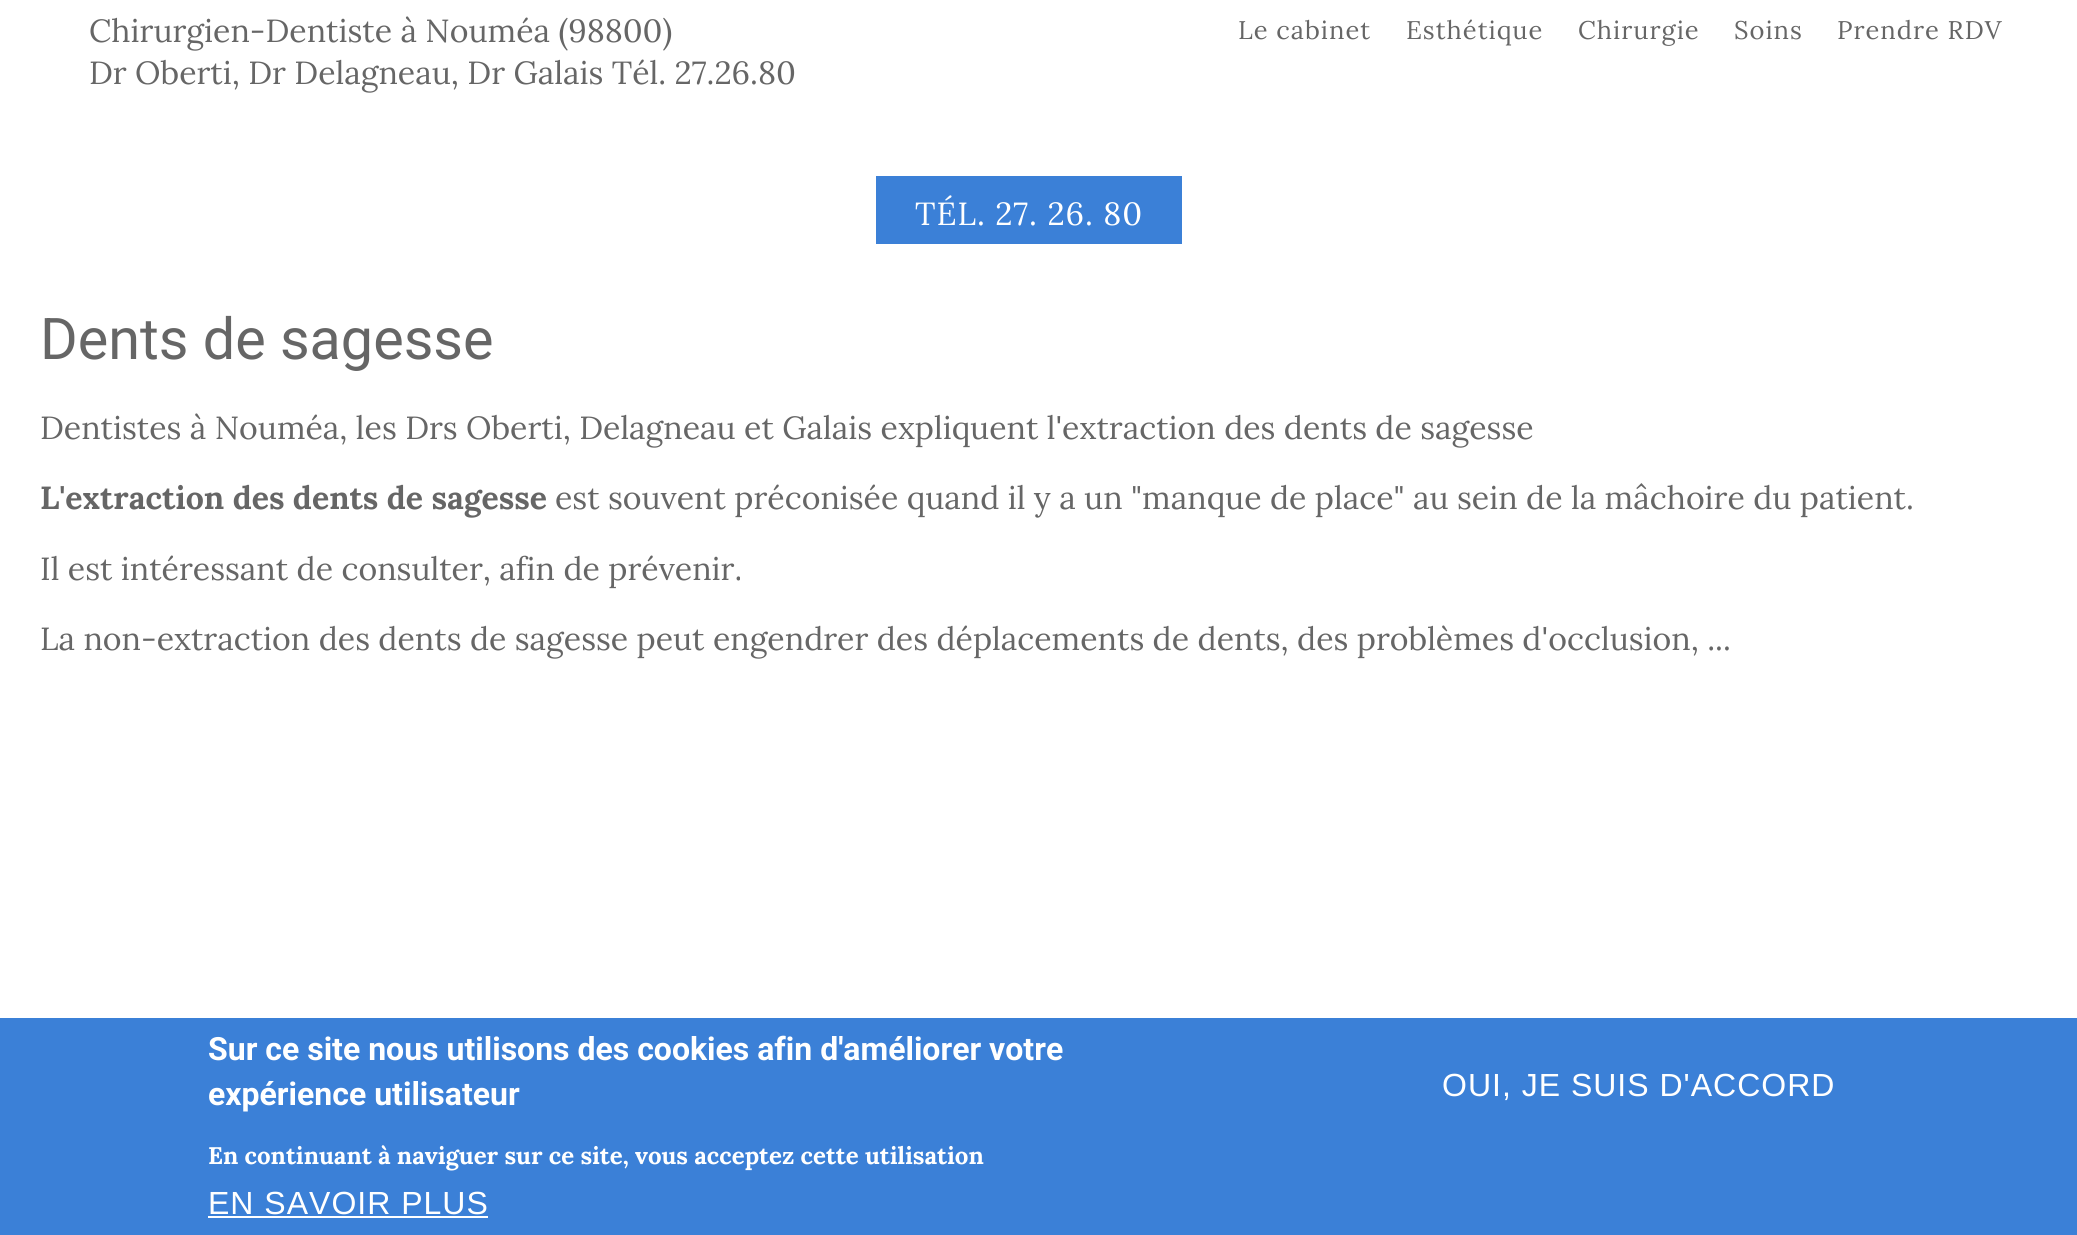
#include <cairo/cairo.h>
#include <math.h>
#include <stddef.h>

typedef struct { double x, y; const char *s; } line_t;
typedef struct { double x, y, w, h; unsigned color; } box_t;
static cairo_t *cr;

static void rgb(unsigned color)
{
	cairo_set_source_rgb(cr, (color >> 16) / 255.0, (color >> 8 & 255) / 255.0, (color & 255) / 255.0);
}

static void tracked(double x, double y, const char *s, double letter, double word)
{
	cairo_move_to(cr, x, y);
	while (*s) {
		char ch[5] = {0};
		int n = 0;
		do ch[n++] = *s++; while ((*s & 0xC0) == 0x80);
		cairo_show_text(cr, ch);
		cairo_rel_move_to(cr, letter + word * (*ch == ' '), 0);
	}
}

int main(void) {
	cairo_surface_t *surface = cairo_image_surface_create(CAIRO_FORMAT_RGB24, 2077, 1235);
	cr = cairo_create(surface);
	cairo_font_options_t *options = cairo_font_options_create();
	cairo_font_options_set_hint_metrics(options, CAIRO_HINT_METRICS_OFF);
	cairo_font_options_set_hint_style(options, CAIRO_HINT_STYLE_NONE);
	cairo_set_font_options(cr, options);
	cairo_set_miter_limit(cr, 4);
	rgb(0xffffff);
	cairo_paint(cr);
	{
		static const box_t items[] = {
			{876, 176, 306, 68, 0x3b80d7},
			{0, 1018, 2077, 217, 0x3b80d7},
			{208, 1216, 280, 2, 0xffffff},
		};
		for (size_t i = 0; i < sizeof items / sizeof *items; i++) {
			rgb(items[i].color);
			cairo_rectangle(cr, items[i].x, items[i].y, items[i].w, items[i].h);
			cairo_fill(cr);
		}
	}
	cairo_select_font_face(cr, "Lora", CAIRO_FONT_SLANT_NORMAL, CAIRO_FONT_WEIGHT_NORMAL);
	cairo_set_font_size(cr, 32);
	rgb(0x666666);
	cairo_move_to(cr, 89, 42);
	cairo_show_text(cr, "Chirurgien-Dentiste à Nouméa (98800)");
	cairo_move_to(cr, 89, 84);
	cairo_show_text(cr, "Dr Oberti, Dr Delagneau, Dr Galais Tél. 27.26.80");
	cairo_set_font_size(cr, 25.5);
	{
		static const line_t items[] = {
			{1238, 39, "Le cabinet"},
			{1406, 39, "Esthétique"},
			{1578, 39, "Chirurgie"},
			{1734, 39, "Soins"},
			{1837, 39, "Prendre RDV"},
		};
		for (size_t i = 0; i < sizeof items / sizeof *items; i++) {
			tracked(items[i].x, items[i].y, items[i].s, 1, 0);
		}
	}
	cairo_set_font_size(cr, 32);
	rgb(0xffffff);
	tracked(915, 225, "TÉL. 27. 26. 80", 1, 0);
	cairo_select_font_face(cr, "Roboto", CAIRO_FONT_SLANT_NORMAL, CAIRO_FONT_WEIGHT_NORMAL);
	cairo_set_font_size(cr, 57.5);
	rgb(0x666666);
	cairo_move_to(cr, 40, 359);
	cairo_show_text(cr, "Dents de sagesse");
	cairo_select_font_face(cr, "Lora", CAIRO_FONT_SLANT_NORMAL, CAIRO_FONT_WEIGHT_NORMAL);
	cairo_set_font_size(cr, 32);
	cairo_move_to(cr, 40, 439);
	cairo_show_text(cr, "Dentistes à Nouméa, les Drs Oberti, Delagneau et Galais expliquent l'extraction des dents de sagesse");
	cairo_select_font_face(cr, "Lora", CAIRO_FONT_SLANT_NORMAL, CAIRO_FONT_WEIGHT_BOLD);
	cairo_move_to(cr, 40, 509);
	cairo_show_text(cr, "L'extraction des dents de sagesse");
	cairo_select_font_face(cr, "Lora", CAIRO_FONT_SLANT_NORMAL, CAIRO_FONT_WEIGHT_NORMAL);
	{
		static const line_t items[] = {
			{555, 509, "est souvent préconisée quand il y a un \"manque de place\" au sein de la mâchoire du patient."},
			{40, 580, "Il est intéressant de consulter, afin de prévenir."},
			{40, 650, "La non-extraction des dents de sagesse peut engendrer des déplacements de dents, des problèmes d'occlusion, ..."},
		};
		for (size_t i = 0; i < sizeof items / sizeof *items; i++) {
			cairo_move_to(cr, items[i].x, items[i].y);
			cairo_show_text(cr, items[i].s);
		}
	}
	cairo_select_font_face(cr, "Roboto", CAIRO_FONT_SLANT_NORMAL, CAIRO_FONT_WEIGHT_BOLD);
	rgb(0xffffff);
	cairo_move_to(cr, 208, 1060);
	cairo_show_text(cr, "Sur ce site nous utilisons des cookies afin d'améliorer votre");
	cairo_move_to(cr, 208, 1105);
	cairo_show_text(cr, "expérience utilisateur");
	cairo_select_font_face(cr, "Lora", CAIRO_FONT_SLANT_NORMAL, CAIRO_FONT_WEIGHT_BOLD);
	cairo_set_font_size(cr, 24);
	cairo_move_to(cr, 208, 1164);
	cairo_show_text(cr, "En continuant à naviguer sur ce site, vous acceptez cette utilisation");
	cairo_select_font_face(cr, "Liberation Sans", CAIRO_FONT_SLANT_NORMAL, CAIRO_FONT_WEIGHT_NORMAL);
	cairo_set_font_size(cr, 32);
	tracked(208, 1214, "EN SAVOIR PLUS", 1, 0);
	tracked(1442, 1096, "OUI, JE SUIS D'ACCORD", 1, 0);
	cairo_surface_write_to_png(surface, "page.png");
	cairo_font_options_destroy(options);
	cairo_destroy(cr);
	cairo_surface_destroy(surface);
	return 0;
}
